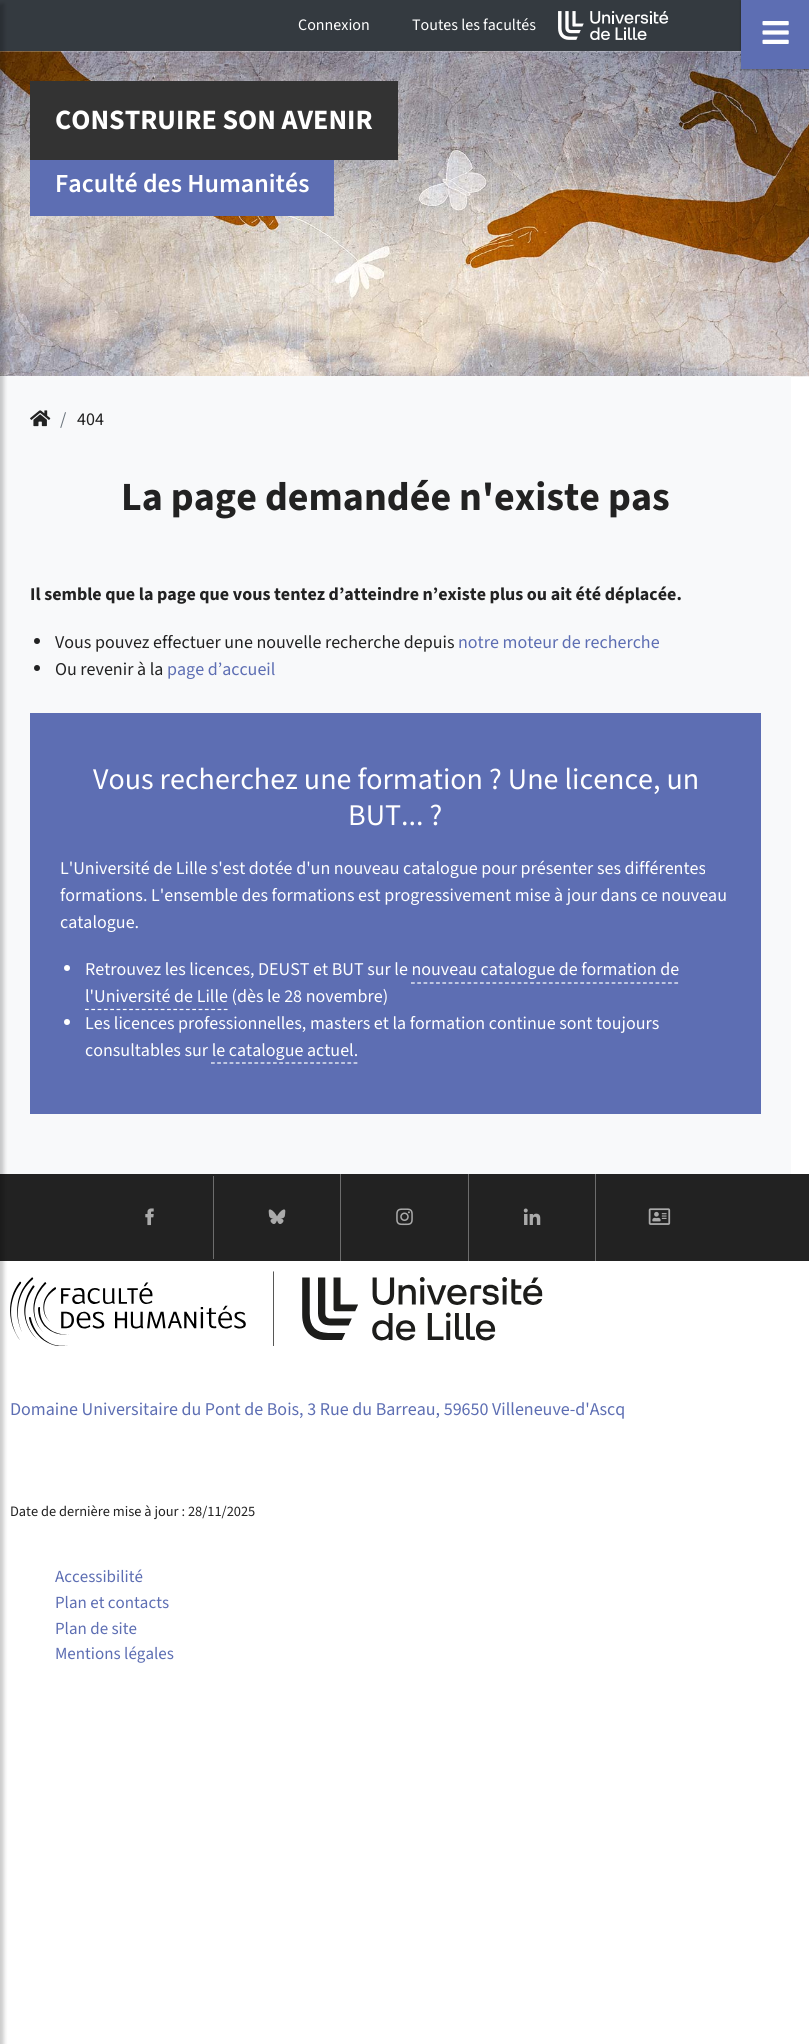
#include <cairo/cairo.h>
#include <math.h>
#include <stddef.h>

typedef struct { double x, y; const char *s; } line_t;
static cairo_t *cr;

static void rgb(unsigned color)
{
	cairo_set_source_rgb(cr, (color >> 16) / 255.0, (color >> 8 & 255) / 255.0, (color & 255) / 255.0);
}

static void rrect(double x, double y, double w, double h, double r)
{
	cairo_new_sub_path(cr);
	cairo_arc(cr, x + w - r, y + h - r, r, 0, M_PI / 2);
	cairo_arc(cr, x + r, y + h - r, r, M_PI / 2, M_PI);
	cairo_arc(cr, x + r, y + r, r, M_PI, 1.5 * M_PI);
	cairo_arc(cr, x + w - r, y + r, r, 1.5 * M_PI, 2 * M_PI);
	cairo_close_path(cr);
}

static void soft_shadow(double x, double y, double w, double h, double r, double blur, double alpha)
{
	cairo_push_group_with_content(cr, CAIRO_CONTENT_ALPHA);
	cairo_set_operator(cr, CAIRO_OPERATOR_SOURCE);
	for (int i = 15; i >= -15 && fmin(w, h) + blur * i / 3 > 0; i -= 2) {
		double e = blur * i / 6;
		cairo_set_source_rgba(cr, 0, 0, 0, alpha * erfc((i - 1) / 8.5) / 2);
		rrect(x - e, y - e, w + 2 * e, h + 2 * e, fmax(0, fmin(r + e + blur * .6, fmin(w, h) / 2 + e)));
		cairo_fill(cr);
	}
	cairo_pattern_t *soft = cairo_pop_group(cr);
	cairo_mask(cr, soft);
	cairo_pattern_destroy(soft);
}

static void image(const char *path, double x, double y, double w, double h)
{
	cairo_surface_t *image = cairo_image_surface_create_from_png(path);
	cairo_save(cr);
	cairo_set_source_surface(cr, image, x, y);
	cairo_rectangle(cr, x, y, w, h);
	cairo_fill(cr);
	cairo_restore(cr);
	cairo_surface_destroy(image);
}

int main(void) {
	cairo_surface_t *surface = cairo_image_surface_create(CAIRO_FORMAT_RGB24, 809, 2044);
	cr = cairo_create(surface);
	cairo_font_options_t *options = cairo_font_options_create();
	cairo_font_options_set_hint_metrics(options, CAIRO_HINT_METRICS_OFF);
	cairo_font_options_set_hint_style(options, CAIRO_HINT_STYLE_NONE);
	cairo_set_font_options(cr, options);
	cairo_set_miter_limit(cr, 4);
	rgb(0xffffff);
	cairo_paint(cr);
	rgb(0x343a40);
	cairo_rectangle(cr, 0, 0, 741, 51);
	cairo_fill(cr);
	image("img/1.png", 558, 10, 111, 30);
	image("img/3.png", 0, 51, 809, 326);
	rgb(0xf8f9fa);
	cairo_rectangle(cr, 0, 376, 791, 798);
	cairo_fill(cr);
	rgb(0x222222);
	cairo_rectangle(cr, 0, 1174, 809, 87);
	cairo_fill(cr);
	image("img/10.png", 10, 1271, 533, 75);
	rgb(0x000000);
	soft_shadow(-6, 4, 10, 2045, 0, 2, 0.2);
	soft_shadow(741, 1, 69, 69, 0, 1, 0.24);
	soft_shadow(741, 1, 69, 69, 0, 2, 0.12);
	rgb(0x5d6eb3);
	cairo_rectangle(cr, 741, 0, 68, 69);
	cairo_fill(cr);
	image("img/2.png", 762, 21, 27, 23);
	rgb(0x333333);
	cairo_rectangle(cr, 30, 81, 368, 79);
	cairo_fill(cr);
	rgb(0x5d6eb3);
	cairo_rectangle(cr, 30, 160, 304, 56);
	cairo_fill(cr);
	image("img/4.png", 30, 410, 21, 17);
	rgb(0x222222);
	cairo_arc(cr, 37, 641, 3, 0, 2 * M_PI);
	cairo_fill(cr);
	cairo_arc(cr, 37, 668, 3, 0, 2 * M_PI);
	cairo_fill(cr);
	rgb(0x5d6eb3);
	cairo_rectangle(cr, 30, 713, 731, 401);
	cairo_fill(cr);
	rgb(0xffffff);
	cairo_arc(cr, 67, 968, 3, 0, 2 * M_PI);
	cairo_fill(cr);
	cairo_new_path(cr);
	cairo_move_to(cr, 411, 983);
	cairo_line_to(cr, 679, 983);
	cairo_set_line_width(cr, 1.2);
	cairo_set_dash(cr, (double[]){3.75, 2.52}, 2, 0);
	cairo_stroke(cr);
	cairo_new_path(cr);
	cairo_move_to(cr, 85, 1009.5);
	cairo_line_to(cr, 227.5, 1009.5);
	cairo_set_dash(cr, (double[]){3.75, 2.56}, 2, 0);
	cairo_stroke(cr);
	cairo_arc(cr, 67, 1022, 3, 0, 2 * M_PI);
	cairo_fill(cr);
	cairo_new_path(cr);
	cairo_move_to(cr, 211, 1063);
	cairo_line_to(cr, 357.5, 1063);
	cairo_set_dash(cr, (double[]){3.75, 2.45}, 2, 0);
	cairo_stroke(cr);
	rgb(0x6d6d6d);
	cairo_rectangle(cr, 213, 1176, 1, 83);
	cairo_fill(cr);
	image("img/5.png", 145, 1208, 9, 18);
	cairo_rectangle(cr, 340, 1174, 1, 87);
	cairo_fill(cr);
	image("img/6.png", 268, 1209, 18, 15);
	cairo_rectangle(cr, 468, 1174, 1, 87);
	cairo_fill(cr);
	image("img/7.png", 396, 1208, 17, 18);
	cairo_rectangle(cr, 595, 1174, 1, 87);
	cairo_fill(cr);
	image("img/8.png", 523, 1208, 18, 17);
	image("img/9.png", 648, 1208, 23, 17);
	cairo_select_font_face(cr, "Source Sans 3 ExtraLight", CAIRO_FONT_SLANT_NORMAL, CAIRO_FONT_WEIGHT_NORMAL);
	cairo_set_font_size(cr, 16);
	rgb(0xffffff);
	cairo_move_to(cr, 298, 30);
	cairo_show_text(cr, "Connexion");
	cairo_move_to(cr, 412, 30);
	cairo_show_text(cr, "Toutes les facultés");
	cairo_select_font_face(cr, "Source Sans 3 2 ExtraLight", CAIRO_FONT_SLANT_NORMAL, CAIRO_FONT_WEIGHT_NORMAL);
	cairo_set_font_size(cr, 28);
	cairo_move_to(cr, 55, 129);
	cairo_show_text(cr, "CONSTRUIRE SON AVENIR");
	cairo_select_font_face(cr, "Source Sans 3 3 ExtraLight", CAIRO_FONT_SLANT_NORMAL, CAIRO_FONT_WEIGHT_NORMAL);
	cairo_set_font_size(cr, 26);
	cairo_move_to(cr, 55, 192);
	cairo_show_text(cr, "Faculté des Humanités");
	cairo_select_font_face(cr, "Source Sans 3 ExtraLight", CAIRO_FONT_SLANT_NORMAL, CAIRO_FONT_WEIGHT_NORMAL);
	cairo_set_font_size(cr, 18);
	rgb(0x6c757d);
	cairo_move_to(cr, 60, 425);
	cairo_show_text(cr, "/");
	rgb(0x222222);
	cairo_move_to(cr, 77, 425);
	cairo_show_text(cr, "404");
	cairo_select_font_face(cr, "Source Sans 3 2 ExtraLight", CAIRO_FONT_SLANT_NORMAL, CAIRO_FONT_WEIGHT_NORMAL);
	cairo_set_font_size(cr, 40);
	cairo_move_to(cr, 121, 510);
	cairo_show_text(cr, "La page demandée n'existe pas");
	cairo_set_font_size(cr, 18);
	cairo_move_to(cr, 30, 600);
	cairo_show_text(cr, "Il semble que la page que vous tentez d’atteindre n’existe plus ou ait été déplacée.");
	cairo_select_font_face(cr, "Source Sans 3 ExtraLight", CAIRO_FONT_SLANT_NORMAL, CAIRO_FONT_WEIGHT_NORMAL);
	cairo_move_to(cr, 55, 648);
	cairo_show_text(cr, "Vous pouvez effectuer une nouvelle recherche depuis");
	rgb(0x5d6eb3);
	cairo_move_to(cr, 458, 648);
	cairo_show_text(cr, "notre moteur de recherche");
	rgb(0x222222);
	cairo_move_to(cr, 55, 675);
	cairo_show_text(cr, "Ou revenir à la");
	rgb(0x5d6eb3);
	cairo_move_to(cr, 167, 675);
	cairo_show_text(cr, "page d’accueil");
	cairo_set_font_size(cr, 30);
	rgb(0xffffff);
	cairo_move_to(cr, 93, 789);
	cairo_show_text(cr, "Vous recherchez une formation ? Une licence, un");
	cairo_move_to(cr, 348, 825);
	cairo_show_text(cr, "BUT... ?");
	cairo_set_font_size(cr, 18);
	{
		static const line_t items[] = {
			{60, 874, "L'Université de Lille s'est dotée d'un nouveau catalogue pour présenter ses différentes"},
			{60, 901, "formations. L'ensemble des formations est progressivement mise à jour dans ce nouveau"},
			{60, 928, "catalogue."},
			{85, 975, "Retrouvez les licences, DEUST et BUT sur le nouveau catalogue de formation de"},
			{85, 1002, "l'Université de Lille (dès le 28 novembre)"},
			{85, 1029, "Les licences professionnelles, masters et la formation continue sont toujours"},
			{85, 1056, "consultables sur le catalogue actuel."},
		};
		for (size_t i = 0; i < sizeof items / sizeof *items; i++) {
			cairo_move_to(cr, items[i].x, items[i].y);
			cairo_show_text(cr, items[i].s);
		}
	}
	rgb(0x5d6eb3);
	cairo_move_to(cr, 10, 1415);
	cairo_show_text(cr, "Domaine Universitaire du Pont de Bois, 3 Rue du Barreau, 59650 Villeneuve-d'Ascq");
	cairo_set_font_size(cr, 14.4);
	rgb(0x222222);
	cairo_move_to(cr, 10, 1516);
	cairo_show_text(cr, "Date de dernière mise à jour : 28/11/2025");
	cairo_set_font_size(cr, 17);
	rgb(0x5d6eb3);
	{
		static const line_t items[] = {
			{55, 1582, "Accessibilité"},
			{55, 1608, "Plan et contacts"},
			{55, 1634, "Plan de site"},
			{55, 1659, "Mentions légales"},
		};
		for (size_t i = 0; i < sizeof items / sizeof *items; i++) {
			cairo_move_to(cr, items[i].x, items[i].y);
			cairo_show_text(cr, items[i].s);
		}
	}
	cairo_surface_write_to_png(surface, "page.png");
	cairo_font_options_destroy(options);
	cairo_destroy(cr);
	cairo_surface_destroy(surface);
	return 0;
}
